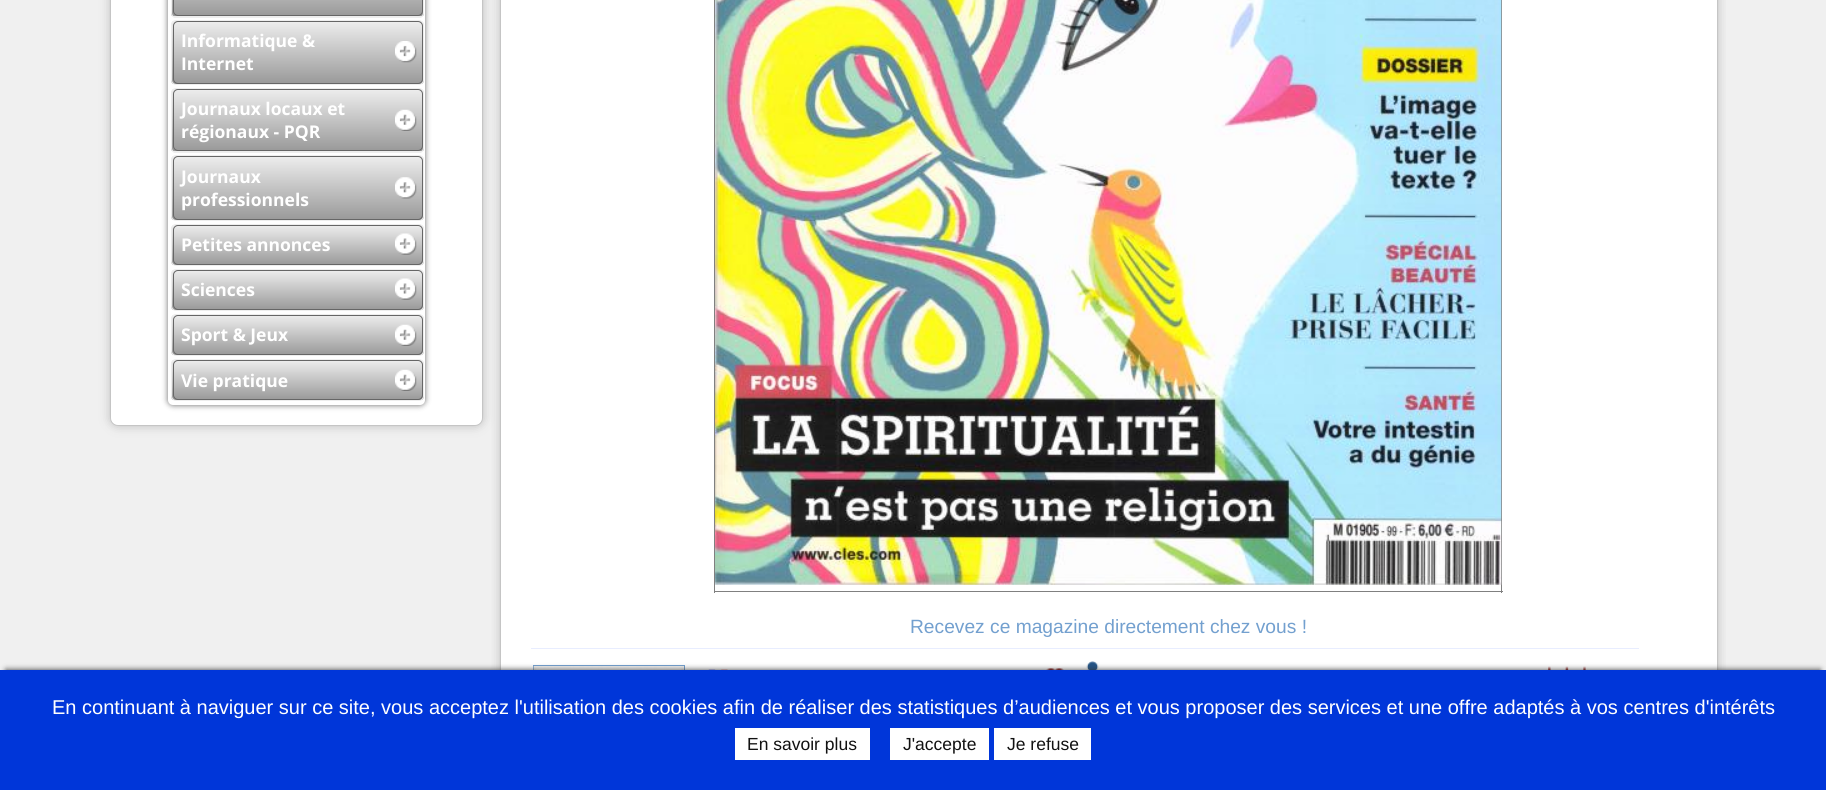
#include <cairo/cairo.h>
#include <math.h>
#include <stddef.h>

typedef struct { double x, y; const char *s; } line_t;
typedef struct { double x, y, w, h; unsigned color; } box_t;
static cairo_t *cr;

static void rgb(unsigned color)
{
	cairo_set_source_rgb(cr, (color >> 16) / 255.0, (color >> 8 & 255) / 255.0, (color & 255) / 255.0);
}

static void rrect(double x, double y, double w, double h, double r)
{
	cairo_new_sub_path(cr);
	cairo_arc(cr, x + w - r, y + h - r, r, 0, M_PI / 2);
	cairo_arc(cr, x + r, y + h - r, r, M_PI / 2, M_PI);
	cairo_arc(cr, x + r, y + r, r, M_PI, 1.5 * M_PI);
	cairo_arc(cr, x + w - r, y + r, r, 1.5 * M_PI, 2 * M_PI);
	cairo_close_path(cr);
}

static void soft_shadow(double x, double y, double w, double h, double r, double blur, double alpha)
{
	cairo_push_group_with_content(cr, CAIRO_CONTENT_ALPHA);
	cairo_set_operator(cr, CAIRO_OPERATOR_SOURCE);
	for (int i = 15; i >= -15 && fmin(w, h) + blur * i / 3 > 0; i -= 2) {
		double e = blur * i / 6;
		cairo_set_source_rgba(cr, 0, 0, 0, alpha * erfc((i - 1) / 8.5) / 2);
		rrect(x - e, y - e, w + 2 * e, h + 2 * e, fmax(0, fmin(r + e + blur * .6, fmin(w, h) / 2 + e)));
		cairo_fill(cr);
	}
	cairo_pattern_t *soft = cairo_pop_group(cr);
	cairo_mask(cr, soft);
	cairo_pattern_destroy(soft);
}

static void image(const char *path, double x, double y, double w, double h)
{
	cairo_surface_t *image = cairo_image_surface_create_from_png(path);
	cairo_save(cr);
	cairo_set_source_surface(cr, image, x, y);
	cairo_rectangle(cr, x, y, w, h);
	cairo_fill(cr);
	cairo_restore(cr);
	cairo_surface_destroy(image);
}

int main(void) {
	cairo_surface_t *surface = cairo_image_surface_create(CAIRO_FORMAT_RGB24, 1826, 790);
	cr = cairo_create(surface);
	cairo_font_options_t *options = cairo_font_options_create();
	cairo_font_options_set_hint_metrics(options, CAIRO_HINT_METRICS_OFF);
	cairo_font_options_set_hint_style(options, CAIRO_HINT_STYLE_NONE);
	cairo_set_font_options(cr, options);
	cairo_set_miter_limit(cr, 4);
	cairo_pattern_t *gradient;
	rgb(0xf0f0f0);
	cairo_paint(cr);
	rgb(0xbdbdbd);
	soft_shadow(110, -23, 373, 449, 8, 5, 1);
	rgb(0xffffff);
	rrect(110.5, -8.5, 372, 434, 7.5);
	cairo_fill_preserve(cr);
	rgb(0xc5c5c5);
	cairo_set_line_width(cr, 1);
	cairo_stroke(cr);
	rgb(0x000000);
	soft_shadow(168, -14, 257, 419, 5, 3, 0.6);
	rgb(0xffffff);
	rrect(168, -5, 257, 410, 5);
	cairo_fill(cr);
	cairo_save(cr);
	rrect(171, -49, 253, 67, 5);
	cairo_clip(cr);
	gradient = cairo_pattern_create_linear(298, -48, 298, 16);
	cairo_pattern_add_color_stop_rgba(gradient, 0, 0.933, 0.933, 0.933, 1);
	cairo_pattern_add_color_stop_rgba(gradient, 1, 0.6, 0.6, 0.6, 1);
	cairo_set_source(cr, gradient);
	cairo_pattern_destroy(gradient);
	cairo_rectangle(cr, 171, 0, 253, 16);
	cairo_fill(cr);
	gradient = cairo_pattern_create_linear(298, 16, 298, 80);
	cairo_pattern_add_color_stop_rgba(gradient, 0, 0.933, 0.933, 0.933, 1);
	cairo_pattern_add_color_stop_rgba(gradient, 1, 0.6, 0.6, 0.6, 1);
	cairo_set_source(cr, gradient);
	cairo_pattern_destroy(gradient);
	cairo_rectangle(cr, 171, 16, 253, 2);
	cairo_fill(cr);
	cairo_restore(cr);
	rrect(171.5, -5.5, 252, 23, 4.5);
	rgb(0xeeeeee);
	cairo_stroke(cr);
	rrect(173.5, -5.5, 249, 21, 4.5);
	rgb(0x666666);
	cairo_stroke(cr);
	cairo_save(cr);
	rrect(171, 20, 253, 65, 5);
	cairo_clip(cr);
	gradient = cairo_pattern_create_linear(298, 21, 298, 84);
	cairo_pattern_add_color_stop_rgba(gradient, 0, 0.933, 0.933, 0.933, 1);
	cairo_pattern_add_color_stop_rgba(gradient, 1, 0.6, 0.6, 0.6, 1);
	cairo_set_source(cr, gradient);
	cairo_pattern_destroy(gradient);
	cairo_rectangle(cr, 171, 21, 253, 63);
	cairo_fill(cr);
	cairo_restore(cr);
	rrect(171.5, 20.5, 252, 64, 4.5);
	rgb(0xeeeeee);
	cairo_stroke(cr);
	image("img/1.png", 395, 41, 22, 22);
	rrect(173.5, 21.5, 249, 62, 4.5);
	rgb(0x666666);
	cairo_stroke(cr);
	cairo_save(cr);
	rrect(171, 88, 253, 65, 5);
	cairo_clip(cr);
	gradient = cairo_pattern_create_linear(298, 89, 298, 151);
	cairo_pattern_add_color_stop_rgba(gradient, 0, 0.933, 0.933, 0.933, 1);
	cairo_pattern_add_color_stop_rgba(gradient, 1, 0.6, 0.6, 0.6, 1);
	cairo_set_source(cr, gradient);
	cairo_pattern_destroy(gradient);
	cairo_rectangle(cr, 171, 89, 253, 62);
	cairo_fill(cr);
	gradient = cairo_pattern_create_linear(298, 151, 298, 214);
	cairo_pattern_add_color_stop_rgba(gradient, 0, 0.933, 0.933, 0.933, 1);
	cairo_pattern_add_color_stop_rgba(gradient, 1, 0.6, 0.6, 0.6, 1);
	cairo_set_source(cr, gradient);
	cairo_pattern_destroy(gradient);
	cairo_rectangle(cr, 171, 151, 253, 2);
	cairo_fill(cr);
	cairo_restore(cr);
	rrect(171.5, 88.5, 252, 64, 4.5);
	rgb(0xeeeeee);
	cairo_stroke(cr);
	image("img/2.png", 395, 109, 22, 22);
	rrect(173.5, 89.5, 249, 61, 4.5);
	rgb(0x666666);
	cairo_stroke(cr);
	cairo_save(cr);
	rrect(171, 155, 253, 66, 5);
	cairo_clip(cr);
	gradient = cairo_pattern_create_linear(298, 156, 298, 220);
	cairo_pattern_add_color_stop_rgba(gradient, 0, 0.933, 0.933, 0.933, 1);
	cairo_pattern_add_color_stop_rgba(gradient, 1, 0.6, 0.6, 0.6, 1);
	cairo_set_source(cr, gradient);
	cairo_pattern_destroy(gradient);
	cairo_rectangle(cr, 171, 156, 253, 64);
	cairo_fill(cr);
	cairo_restore(cr);
	rrect(171.5, 155.5, 252, 65, 4.5);
	rgb(0xeeeeee);
	cairo_stroke(cr);
	image("img/3.png", 395, 177, 22, 22);
	rrect(173.5, 156.5, 249, 63, 4.5);
	rgb(0x666666);
	cairo_stroke(cr);
	cairo_save(cr);
	rrect(171, 224, 253, 42, 5);
	cairo_clip(cr);
	gradient = cairo_pattern_create_linear(298, 225, 298, 265);
	cairo_pattern_add_color_stop_rgba(gradient, 0, 0.933, 0.933, 0.933, 1);
	cairo_pattern_add_color_stop_rgba(gradient, 1, 0.6, 0.6, 0.6, 1);
	cairo_set_source(cr, gradient);
	cairo_pattern_destroy(gradient);
	cairo_rectangle(cr, 171, 225, 253, 40);
	cairo_fill(cr);
	cairo_restore(cr);
	rrect(171.5, 224.5, 252, 41, 4.5);
	rgb(0xeeeeee);
	cairo_stroke(cr);
	image("img/4.png", 395, 233, 22, 22);
	rrect(173.5, 225.5, 249, 39, 4.5);
	rgb(0x666666);
	cairo_stroke(cr);
	cairo_save(cr);
	rrect(171, 269, 253, 42, 5);
	cairo_clip(cr);
	gradient = cairo_pattern_create_linear(298, 270, 298, 310);
	cairo_pattern_add_color_stop_rgba(gradient, 0, 0.933, 0.933, 0.933, 1);
	cairo_pattern_add_color_stop_rgba(gradient, 1, 0.6, 0.6, 0.6, 1);
	cairo_set_source(cr, gradient);
	cairo_pattern_destroy(gradient);
	cairo_rectangle(cr, 171, 270, 253, 40);
	cairo_fill(cr);
	cairo_restore(cr);
	rrect(171.5, 269.5, 252, 41, 4.5);
	rgb(0xeeeeee);
	cairo_stroke(cr);
	image("img/4.png", 395, 278, 22, 22);
	rrect(173.5, 270.5, 249, 39, 4.5);
	rgb(0x666666);
	cairo_stroke(cr);
	cairo_save(cr);
	rrect(171, 314, 253, 42, 5);
	cairo_clip(cr);
	gradient = cairo_pattern_create_linear(298, 315, 298, 355);
	cairo_pattern_add_color_stop_rgba(gradient, 0, 0.933, 0.933, 0.933, 1);
	cairo_pattern_add_color_stop_rgba(gradient, 1, 0.6, 0.6, 0.6, 1);
	cairo_set_source(cr, gradient);
	cairo_pattern_destroy(gradient);
	cairo_rectangle(cr, 171, 315, 253, 40);
	cairo_fill(cr);
	cairo_restore(cr);
	rrect(171.5, 314.5, 252, 41, 4.5);
	rgb(0xeeeeee);
	cairo_stroke(cr);
	image("img/5.png", 395, 324, 22, 22);
	rrect(173.5, 315.5, 249, 39, 4.5);
	rgb(0x666666);
	cairo_stroke(cr);
	cairo_save(cr);
	rrect(171, 359, 253, 42, 5);
	cairo_clip(cr);
	gradient = cairo_pattern_create_linear(298, 360, 298, 400);
	cairo_pattern_add_color_stop_rgba(gradient, 0, 0.933, 0.933, 0.933, 1);
	cairo_pattern_add_color_stop_rgba(gradient, 1, 0.6, 0.6, 0.6, 1);
	cairo_set_source(cr, gradient);
	cairo_pattern_destroy(gradient);
	cairo_rectangle(cr, 171, 360, 253, 40);
	cairo_fill(cr);
	cairo_restore(cr);
	rrect(171.5, 359.5, 252, 41, 4.5);
	rgb(0xeeeeee);
	cairo_stroke(cr);
	image("img/5.png", 395, 369, 22, 22);
	rrect(173.5, 360.5, 249, 39, 4.5);
	rgb(0x666666);
	cairo_stroke(cr);
	cairo_save(cr);
	cairo_rectangle(cr, 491, 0, 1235, 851);
	cairo_clip(cr);
	rgb(0xbdbdbd);
	soft_shadow(500, -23, 1218, 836, 8, 5, 1);
	cairo_restore(cr);
	rgb(0xffffff);
	cairo_rectangle(cr, 501, 0, 1216, 670);
	cairo_fill(cr);
	cairo_rectangle(cr, 500.5, -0.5, 1217, 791);
	rgb(0xc5c5c5);
	cairo_stroke(cr);
	{
		static const box_t items[] = {
			{1501, 0, 1, 593, 0x808080},
			{714, 591, 789, 1, 0x808080},
			{714, 0, 1, 593, 0x808080},
		};
		for (size_t i = 0; i < sizeof items / sizeof *items; i++) {
			rgb(items[i].color);
			cairo_rectangle(cr, items[i].x, items[i].y, items[i].w, items[i].h);
			cairo_fill(cr);
		}
	}
	image("img/6.png", 715, 0, 787, 585);
	rgb(0xe8edff);
	cairo_rectangle(cr, 531, 648, 1108, 1);
	cairo_fill(cr);
	image("img/7.png", 1546, 666, 41, 4);
	cairo_rectangle(cr, 533.5, 665.5, 151, 114);
	rgb(0x73a0cf);
	cairo_stroke(cr);
	image("img/8.png", 533, 666, 151, 4);
	image("img/9.png", 708, 669, 20, 1);
	image("img/10.png", 1046, 668, 18, 2);
	image("img/11.png", 1086, 661, 13, 9);
	rgb(0x333333);
	soft_shadow(6, 670, 1814, 108, 0, 3, 1);
	{
		static const box_t items[] = {
			{0, 670, 1826, 120, 0x0036d9},
			{735, 728, 135, 32, 0xffffff},
			{890, 728, 99, 32, 0xffffff},
			{994, 728, 97, 32, 0xffffff},
		};
		for (size_t i = 0; i < sizeof items / sizeof *items; i++) {
			rgb(items[i].color);
			cairo_rectangle(cr, items[i].x, items[i].y, items[i].w, items[i].h);
			cairo_fill(cr);
		}
	}
	cairo_select_font_face(cr, "Open Sans", CAIRO_FONT_SLANT_NORMAL, CAIRO_FONT_WEIGHT_BOLD);
	cairo_set_font_size(cr, 17.5);
	{
		static const line_t items[] = {
			{181, 47, "Informatique &"},
			{181, 70, "Internet"},
			{181, 115, "Journaux locaux et"},
			{181, 138, "régionaux - PQR"},
			{181, 183, "Journaux"},
			{181, 206, "professionnels"},
			{181, 251, "Petites annonces"},
			{181, 296, "Sciences"},
			{181, 341, "Sport & Jeux"},
			{181, 387, "Vie pratique"},
		};
		for (size_t i = 0; i < sizeof items / sizeof *items; i++) {
			cairo_move_to(cr, items[i].x, items[i].y);
			cairo_show_text(cr, items[i].s);
		}
	}
	cairo_select_font_face(cr, "Liberation Sans", CAIRO_FONT_SLANT_NORMAL, CAIRO_FONT_WEIGHT_NORMAL);
	cairo_set_font_size(cr, 19.2);
	rgb(0x73a0cf);
	cairo_move_to(cr, 910, 633);
	cairo_show_text(cr, "Recevez ce magazine directement chez vous !");
	cairo_set_font_size(cr, 20);
	rgb(0xffffff);
	cairo_move_to(cr, 52, 714);
	cairo_show_text(cr, "En continuant à naviguer sur ce site, vous acceptez l'utilisation des cookies afin de réaliser des statistiques d’audiences et vous proposer des services et une offre adaptés à vos centres d'intérêts");
	cairo_set_font_size(cr, 17.5);
	rgb(0x111111);
	{
		static const line_t items[] = {
			{747, 750, "En savoir plus"},
			{903, 750, "J'accepte"},
			{1007, 750, "Je refuse"},
		};
		for (size_t i = 0; i < sizeof items / sizeof *items; i++) {
			cairo_move_to(cr, items[i].x, items[i].y);
			cairo_show_text(cr, items[i].s);
		}
	}
	cairo_surface_write_to_png(surface, "page.png");
	cairo_font_options_destroy(options);
	cairo_destroy(cr);
	cairo_surface_destroy(surface);
	return 0;
}
